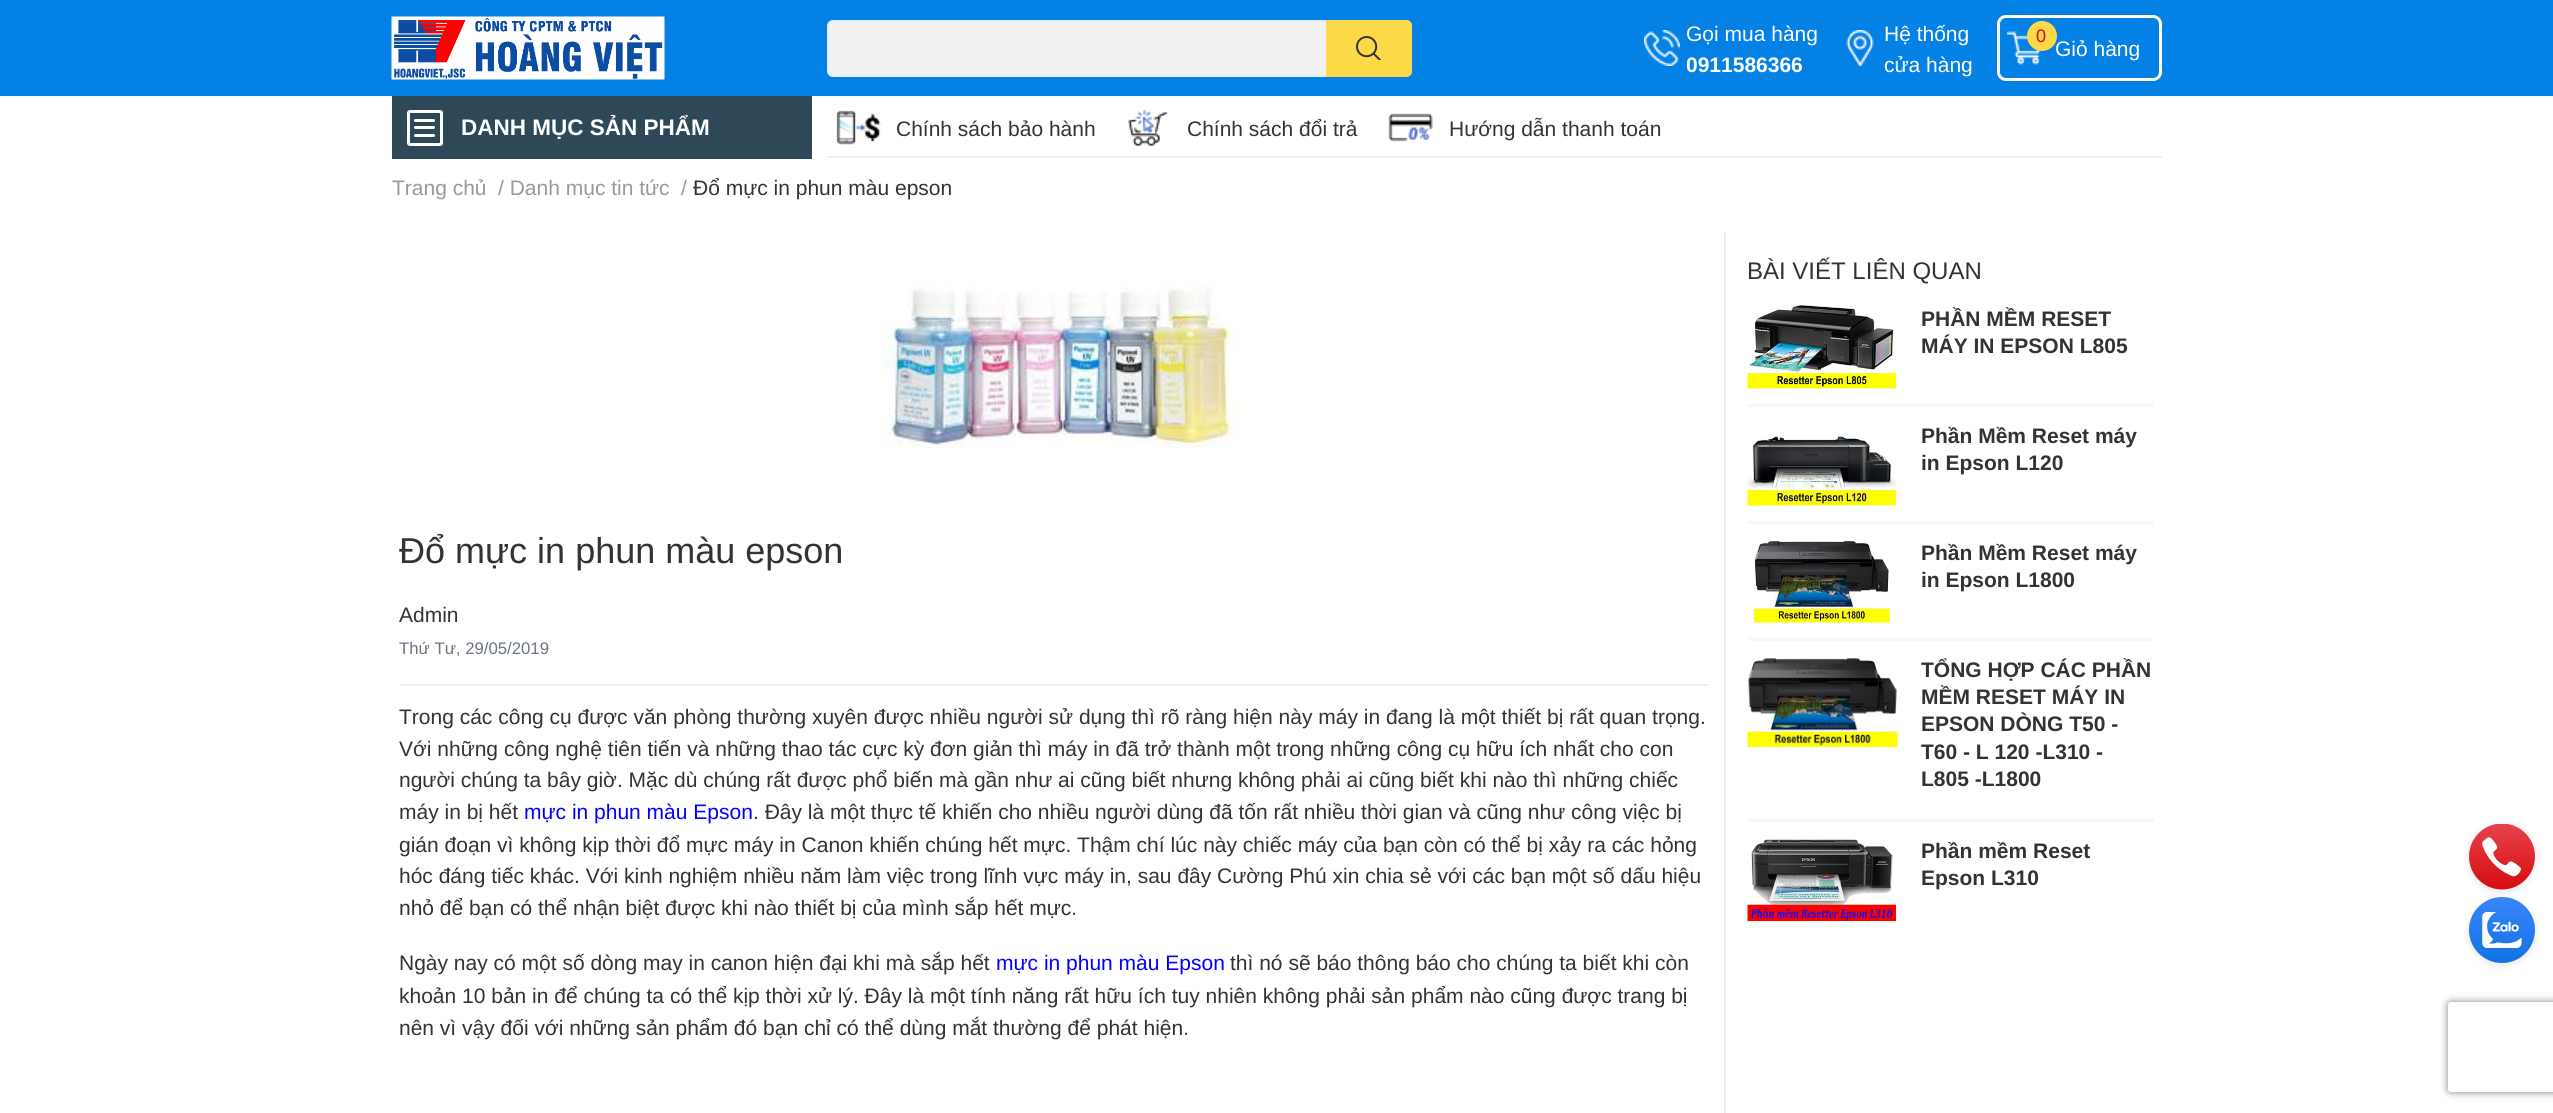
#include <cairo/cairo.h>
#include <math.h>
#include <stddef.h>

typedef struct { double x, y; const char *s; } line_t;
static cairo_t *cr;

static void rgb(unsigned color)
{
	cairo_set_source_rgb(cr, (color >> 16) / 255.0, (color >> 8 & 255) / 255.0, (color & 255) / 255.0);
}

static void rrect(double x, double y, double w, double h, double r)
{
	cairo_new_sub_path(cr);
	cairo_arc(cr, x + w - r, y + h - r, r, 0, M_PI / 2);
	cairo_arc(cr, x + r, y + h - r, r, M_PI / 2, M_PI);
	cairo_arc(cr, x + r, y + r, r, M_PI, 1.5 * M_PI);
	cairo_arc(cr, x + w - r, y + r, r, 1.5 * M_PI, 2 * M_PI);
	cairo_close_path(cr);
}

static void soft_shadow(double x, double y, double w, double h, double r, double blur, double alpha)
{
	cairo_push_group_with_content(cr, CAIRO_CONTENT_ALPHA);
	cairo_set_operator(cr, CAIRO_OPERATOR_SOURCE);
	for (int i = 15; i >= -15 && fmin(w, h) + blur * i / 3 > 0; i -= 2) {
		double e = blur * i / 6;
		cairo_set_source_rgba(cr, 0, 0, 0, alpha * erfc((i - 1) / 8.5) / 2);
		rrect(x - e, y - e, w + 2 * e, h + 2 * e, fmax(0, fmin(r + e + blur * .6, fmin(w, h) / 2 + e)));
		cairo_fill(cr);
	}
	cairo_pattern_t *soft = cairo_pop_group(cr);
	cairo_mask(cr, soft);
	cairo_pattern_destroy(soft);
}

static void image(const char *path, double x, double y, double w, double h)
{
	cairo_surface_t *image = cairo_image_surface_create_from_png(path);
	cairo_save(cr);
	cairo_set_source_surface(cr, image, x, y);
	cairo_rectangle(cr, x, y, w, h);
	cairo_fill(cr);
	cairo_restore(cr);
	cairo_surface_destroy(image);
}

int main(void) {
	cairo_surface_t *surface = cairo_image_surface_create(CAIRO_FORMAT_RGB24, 2553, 1113);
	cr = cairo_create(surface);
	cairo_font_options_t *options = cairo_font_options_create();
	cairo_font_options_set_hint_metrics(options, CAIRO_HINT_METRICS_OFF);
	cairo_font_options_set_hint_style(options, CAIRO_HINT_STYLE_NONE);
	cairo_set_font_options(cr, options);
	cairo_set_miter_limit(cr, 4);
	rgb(0xffffff);
	cairo_paint(cr);
	rgb(0x0481e5);
	cairo_rectangle(cr, 0, 0, 2553, 96);
	cairo_fill(cr);
	image("img/1.png", 391, 16, 274, 64);
	rgb(0xf1f1f1);
	rrect(828, 21, 583, 55, 5);
	cairo_fill_preserve(cr);
	rgb(0xebebeb);
	cairo_stroke(cr);
	rgb(0xfbd947);
	cairo_new_path(cr);
	cairo_move_to(cr, 1326, 20);
	cairo_line_to(cr, 1406, 20);
	cairo_curve_to(cr, 1409.5, 20, 1412, 22.5, 1412, 26);
	cairo_line_to(cr, 1412, 71);
	cairo_curve_to(cr, 1412, 74.5, 1409.5, 77, 1406, 77);
	cairo_line_to(cr, 1326, 77);
	cairo_close_path(cr);
	cairo_fill(cr);
	image("img/2.png", 1356, 36, 25, 24);
	image("img/3.png", 1644, 30, 36, 36);
	image("img/4.png", 1846, 30, 28, 36);
	rrect(1998.5, 16.5, 162, 63, 7.5);
	rgb(0xffffff);
	cairo_set_line_width(cr, 3);
	cairo_stroke(cr);
	image("img/5.png", 2007, 31, 34, 34);
	rgb(0x2f4858);
	cairo_rectangle(cr, 392, 96, 420, 63);
	cairo_fill(cr);
	rrect(408.5, 111.5, 33, 33, 1.5);
	rgb(0xffffff);
	cairo_stroke(cr);
	rrect(414, 119, 21, 3, 1.5);
	cairo_fill(cr);
	rrect(414, 126, 21, 3, 1.5);
	cairo_fill(cr);
	rrect(414, 134, 21, 3, 1.5);
	cairo_fill(cr);
	rgb(0xf1f1f1);
	cairo_rectangle(cr, 827, 156, 1335, 2);
	cairo_fill(cr);
	image("img/6.png", 836, 110, 45, 35);
	image("img/7.png", 1127, 109, 41, 37);
	image("img/8.png", 1388, 113, 45, 29);
	image("img/9.png", 881, 281, 359, 168);
	rgb(0xeeeeee);
	cairo_rectangle(cr, 399, 684, 1310, 2);
	cairo_fill(cr);
	cairo_rectangle(cr, 1724, 233, 2, 880);
	cairo_fill(cr);
	image("img/10.png", 1747, 305, 149, 84);
	rgb(0xf7f7f7);
	cairo_rectangle(cr, 1748, 404, 406, 3);
	cairo_fill(cr);
	image("img/11.png", 1747, 434, 149, 72);
	cairo_rectangle(cr, 1748, 521, 406, 3);
	cairo_fill(cr);
	image("img/12.png", 1754, 540, 136, 83);
	cairo_rectangle(cr, 1748, 638, 406, 3);
	cairo_fill(cr);
	image("img/13.png", 1747, 658, 151, 89);
	cairo_rectangle(cr, 1748, 819, 406, 3);
	cairo_fill(cr);
	image("img/14.png", 1747, 839, 149, 82);
	rgb(0x000000);
	soft_shadow(2469, 825, 66, 66, 33, 4, 0.11);
	image("img/15.png", 2469, 824, 66, 66);
	soft_shadow(2469, 899, 66, 66, 33, 4, 0.11);
	image("img/16.png", 2469, 897, 66, 66);
	cairo_save(cr);
	cairo_set_fill_rule(cr, CAIRO_FILL_RULE_EVEN_ODD);
	cairo_new_path(cr);
	cairo_move_to(cr, 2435, 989);
	cairo_line_to(cr, 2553, 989);
	cairo_line_to(cr, 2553, 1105);
	cairo_line_to(cr, 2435, 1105);
	cairo_close_path(cr);
	cairo_move_to(cr, 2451, 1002);
	cairo_line_to(cr, 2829, 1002);
	cairo_curve_to(cr, 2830.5, 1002, 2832, 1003.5, 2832, 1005);
	cairo_line_to(cr, 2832, 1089);
	cairo_curve_to(cr, 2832, 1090.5, 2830.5, 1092, 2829, 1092);
	cairo_line_to(cr, 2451, 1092);
	cairo_curve_to(cr, 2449.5, 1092, 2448, 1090.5, 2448, 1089);
	cairo_line_to(cr, 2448, 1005);
	cairo_curve_to(cr, 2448, 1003.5, 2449.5, 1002, 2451, 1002);
	cairo_close_path(cr);
	cairo_clip(cr);
	rgb(0x808080);
	soft_shadow(2448, 1002, 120, 90, 3, 4, 1);
	cairo_restore(cr);
	cairo_select_font_face(cr, "Liberation Sans", CAIRO_FONT_SLANT_NORMAL, CAIRO_FONT_WEIGHT_NORMAL);
	cairo_set_font_size(cr, 21);
	rgb(0xffffff);
	cairo_move_to(cr, 1686, 41);
	cairo_show_text(cr, "Gọi mua hàng");
	cairo_select_font_face(cr, "Liberation Sans", CAIRO_FONT_SLANT_NORMAL, CAIRO_FONT_WEIGHT_BOLD);
	cairo_move_to(cr, 1686, 72);
	cairo_show_text(cr, "0911586366");
	cairo_select_font_face(cr, "Liberation Sans", CAIRO_FONT_SLANT_NORMAL, CAIRO_FONT_WEIGHT_NORMAL);
	{
		static const line_t items[] = {
			{1884, 41, "Hệ thống"},
			{1884, 72, "cửa hàng"},
			{2055, 56, "Giỏ hàng"},
		};
		for (size_t i = 0; i < sizeof items / sizeof *items; i++) {
			cairo_move_to(cr, items[i].x, items[i].y);
			cairo_show_text(cr, items[i].s);
		}
	}
	rgb(0xfbd947);
	cairo_new_path(cr);
	cairo_arc(cr, 2042, 36, 15, 0, 2 * M_PI);
	cairo_fill(cr);
	cairo_set_font_size(cr, 18);
	rgb(0xdd0115);
	cairo_move_to(cr, 2036, 42);
	cairo_show_text(cr, "0");
	cairo_select_font_face(cr, "Liberation Sans", CAIRO_FONT_SLANT_NORMAL, CAIRO_FONT_WEIGHT_BOLD);
	cairo_set_font_size(cr, 22.5);
	rgb(0xffffff);
	cairo_move_to(cr, 461, 135);
	cairo_show_text(cr, "DANH MỤC SẢN PHẨM");
	cairo_select_font_face(cr, "Liberation Sans", CAIRO_FONT_SLANT_NORMAL, CAIRO_FONT_WEIGHT_NORMAL);
	cairo_set_font_size(cr, 21);
	rgb(0x333333);
	{
		static const line_t items[] = {
			{896, 136, "Chính sách bảo hành"},
			{1187, 136, "Chính sách đổi trả"},
			{1449, 136, "Hướng dẫn thanh toán"},
		};
		for (size_t i = 0; i < sizeof items / sizeof *items; i++) {
			cairo_move_to(cr, items[i].x, items[i].y);
			cairo_show_text(cr, items[i].s);
		}
	}
	rgb(0x999999);
	{
		static const line_t items[] = {
			{392, 195, "Trang chủ"},
			{498, 195, "/ Danh mục tin tức"},
			{681, 195, "/"},
		};
		for (size_t i = 0; i < sizeof items / sizeof *items; i++) {
			cairo_move_to(cr, items[i].x, items[i].y);
			cairo_show_text(cr, items[i].s);
		}
	}
	rgb(0x333333);
	cairo_move_to(cr, 693, 195);
	cairo_show_text(cr, "Đổ mực in phun màu epson");
	cairo_set_font_size(cr, 36);
	cairo_move_to(cr, 399, 563);
	cairo_show_text(cr, "Đổ mực in phun màu epson");
	cairo_set_font_size(cr, 21);
	cairo_move_to(cr, 399, 622);
	cairo_show_text(cr, "Admin");
	cairo_set_font_size(cr, 16.75);
	rgb(0x6c757d);
	cairo_move_to(cr, 399, 654);
	cairo_show_text(cr, "Thứ Tư, 29/05/2019");
	cairo_set_font_size(cr, 21);
	rgb(0x333333);
	{
		static const line_t items[] = {
			{399, 724, "Trong các công cụ được văn phòng thường xuyên được nhiều người sử dụng thì rõ ràng hiện này máy in đang là một thiết bị rất quan trọng."},
			{399, 756, "Với những công nghệ tiên tiến và những thao tác cực kỳ đơn giản thì máy in đã trở thành một trong những công cụ hữu ích nhất cho con"},
			{399, 787, "người chúng ta bây giờ. Mặc dù chúng rất được phổ biến mà gần như ai cũng biết nhưng không phải ai cũng biết khi nào thì những chiếc"},
			{399, 819, "máy in bị hết"},
		};
		for (size_t i = 0; i < sizeof items / sizeof *items; i++) {
			cairo_move_to(cr, items[i].x, items[i].y);
			cairo_show_text(cr, items[i].s);
		}
	}
	rgb(0x0000ff);
	cairo_move_to(cr, 524, 819);
	cairo_show_text(cr, "mực in phun màu Epson");
	rgb(0x333333);
	{
		static const line_t items[] = {
			{753, 819, ". Đây là một thực tế khiến cho nhiều người dùng đã tốn rất nhiều thời gian và cũng như công việc bị"},
			{399, 852, "gián đoạn vì không kịp thời đổ mực máy in Canon khiến chúng hết mực. Thậm chí lúc này chiếc máy của bạn còn có thể bị xảy ra các hỏng"},
			{399, 883, "hóc đáng tiếc khác. Với kinh nghiệm nhiều năm làm việc trong lĩnh vực máy in, sau đây Cường Phú xin chia sẻ với các bạn một số dấu hiệu"},
			{399, 915, "nhỏ để bạn có thể nhận biệt được khi nào thiết bị của mình sắp hết mực."},
			{399, 970, "Ngày nay có một số dòng may in canon hiện đại khi mà sắp hết"},
		};
		for (size_t i = 0; i < sizeof items / sizeof *items; i++) {
			cairo_move_to(cr, items[i].x, items[i].y);
			cairo_show_text(cr, items[i].s);
		}
	}
	rgb(0x0000ff);
	cairo_move_to(cr, 996, 970);
	cairo_show_text(cr, "mực in phun màu Epson");
	rgb(0x333333);
	{
		static const line_t items[] = {
			{1230, 970, "thì nó sẽ báo thông báo cho chúng ta biết khi còn"},
			{399, 1003, "khoản 10 bản in để chúng ta có thể kịp thời xử lý. Đây là một tính năng rất hữu ích tuy nhiên không phải sản phẩm nào cũng được trang bị"},
			{399, 1035, "nên vì vậy đối với những sản phẩm đó bạn chỉ có thể dùng mắt thường để phát hiện."},
		};
		for (size_t i = 0; i < sizeof items / sizeof *items; i++) {
			cairo_move_to(cr, items[i].x, items[i].y);
			cairo_show_text(cr, items[i].s);
		}
	}
	cairo_set_font_size(cr, 24);
	cairo_move_to(cr, 1747, 279);
	cairo_show_text(cr, "BÀI VIẾT LIÊN QUAN");
	cairo_select_font_face(cr, "Liberation Sans", CAIRO_FONT_SLANT_NORMAL, CAIRO_FONT_WEIGHT_BOLD);
	cairo_set_font_size(cr, 21);
	{
		static const line_t items[] = {
			{1921, 326, "PHẦN MỀM RESET"},
			{1921, 353, "MÁY IN EPSON L805"},
			{1921, 443, "Phần Mềm Reset máy"},
			{1921, 470, "in Epson L120"},
			{1921, 560, "Phần Mềm Reset máy"},
			{1921, 587, "in Epson L1800"},
			{1921, 677, "TỔNG HỢP CÁC PHẦN"},
			{1921, 704, "MỀM RESET MÁY IN"},
			{1921, 731, "EPSON DÒNG T50 -"},
			{1921, 759, "T60 - L 120 -L310 -"},
			{1921, 786, "L805 -L1800"},
			{1921, 858, "Phần mềm Reset"},
			{1921, 885, "Epson L310"},
		};
		for (size_t i = 0; i < sizeof items / sizeof *items; i++) {
			cairo_move_to(cr, items[i].x, items[i].y);
			cairo_show_text(cr, items[i].s);
		}
	}
	cairo_surface_write_to_png(surface, "page.png");
	cairo_font_options_destroy(options);
	cairo_destroy(cr);
	cairo_surface_destroy(surface);
	return 0;
}
